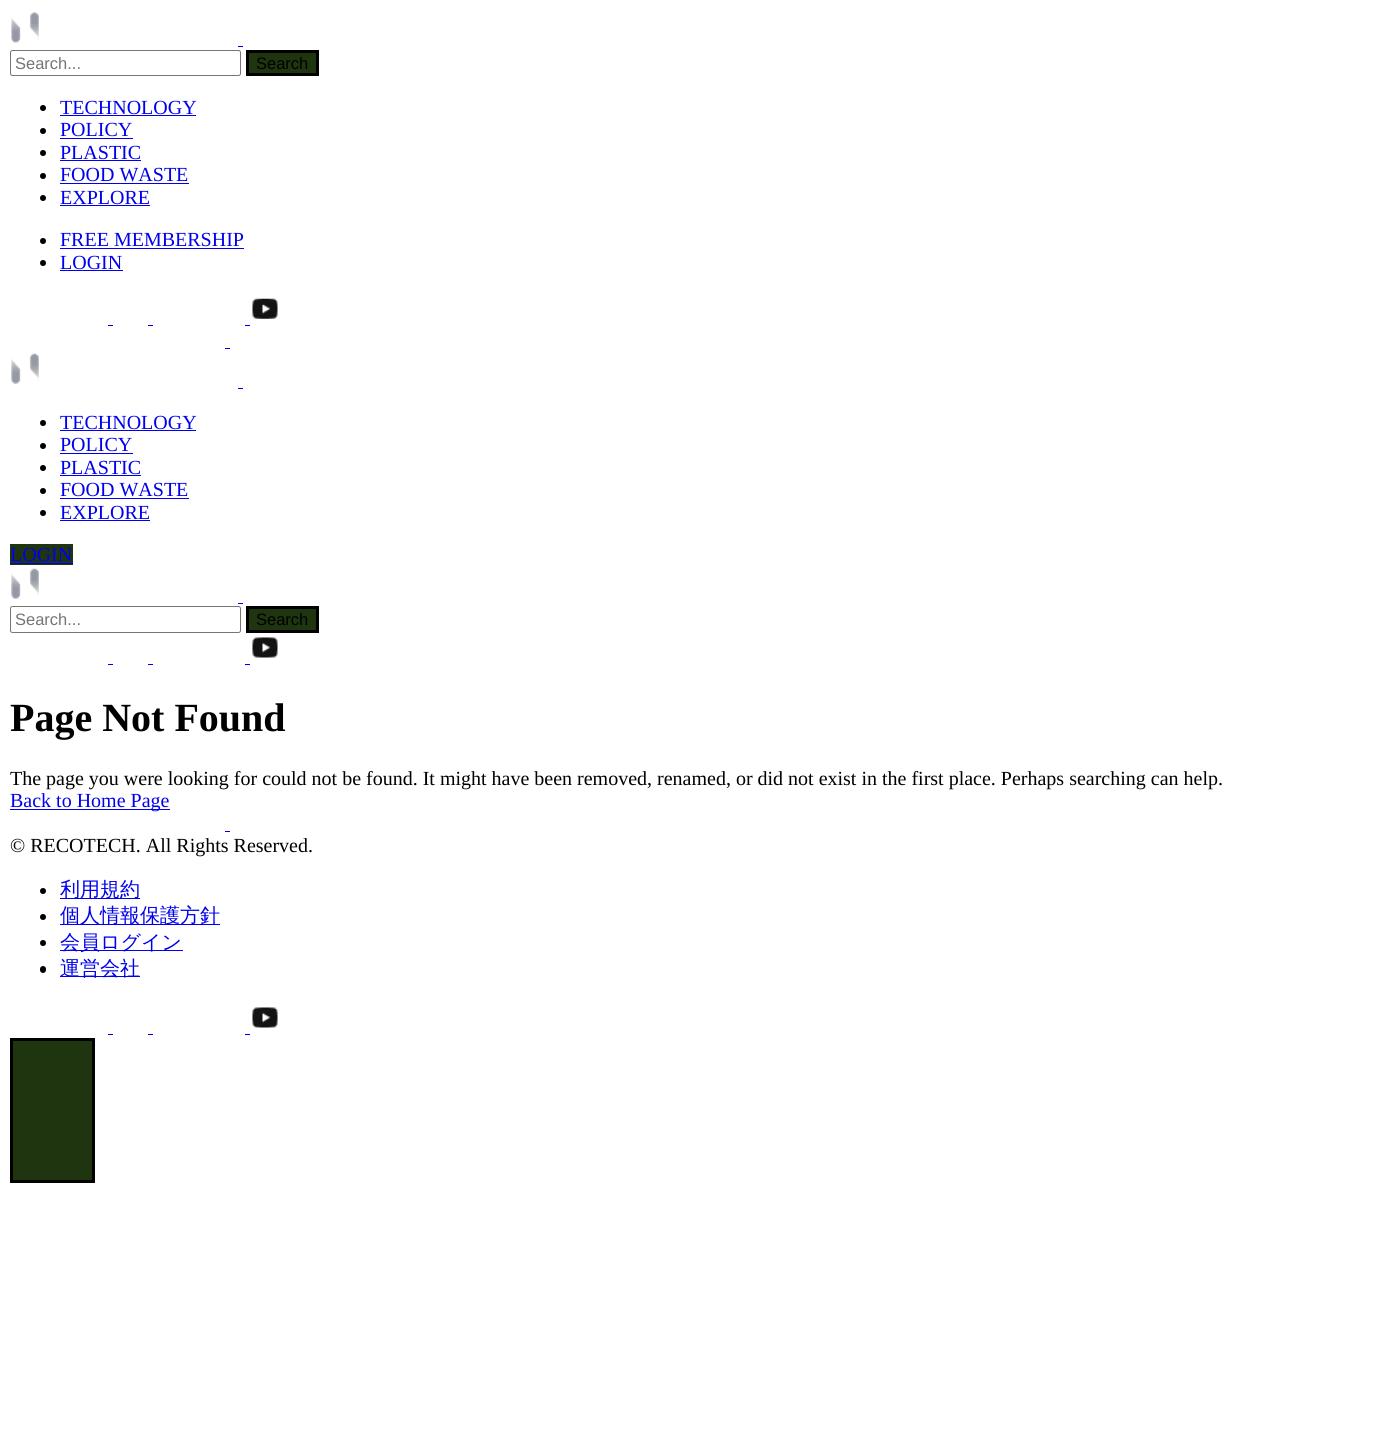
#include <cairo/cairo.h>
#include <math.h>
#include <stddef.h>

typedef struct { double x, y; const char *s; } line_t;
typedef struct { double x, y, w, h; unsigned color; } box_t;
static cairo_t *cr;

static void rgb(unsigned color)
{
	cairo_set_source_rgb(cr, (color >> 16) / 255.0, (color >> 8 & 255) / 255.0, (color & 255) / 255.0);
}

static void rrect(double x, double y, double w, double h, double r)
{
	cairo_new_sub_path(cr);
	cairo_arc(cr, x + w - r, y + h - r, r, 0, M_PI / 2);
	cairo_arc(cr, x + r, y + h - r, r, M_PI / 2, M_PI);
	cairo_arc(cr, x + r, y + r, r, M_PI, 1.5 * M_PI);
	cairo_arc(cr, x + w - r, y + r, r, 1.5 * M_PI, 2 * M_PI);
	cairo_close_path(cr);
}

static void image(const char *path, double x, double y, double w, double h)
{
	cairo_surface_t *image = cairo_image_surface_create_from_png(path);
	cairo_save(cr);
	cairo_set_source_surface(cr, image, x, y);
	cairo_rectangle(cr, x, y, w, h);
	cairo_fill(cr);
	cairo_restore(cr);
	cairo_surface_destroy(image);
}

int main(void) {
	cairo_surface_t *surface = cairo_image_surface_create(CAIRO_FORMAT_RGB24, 1375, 1437);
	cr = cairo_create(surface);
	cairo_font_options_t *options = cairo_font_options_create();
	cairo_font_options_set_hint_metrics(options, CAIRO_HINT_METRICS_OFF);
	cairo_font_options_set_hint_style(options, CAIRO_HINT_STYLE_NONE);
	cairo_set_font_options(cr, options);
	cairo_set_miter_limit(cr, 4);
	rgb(0xffffff);
	cairo_paint(cr);
	image("img/1.png", 11, 12, 28, 31);
	rgb(0x0000ee);
	cairo_rectangle(cr, 238, 46, 5, 1);
	cairo_fill(cr);
	rrect(10.5, 50.5, 230, 25, 2);
	rgb(0x767676);
	cairo_set_line_width(cr, 1);
	cairo_stroke(cr);
	rgb(0x1e350f);
	cairo_rectangle(cr, 247.5, 51.5, 70, 23);
	cairo_fill_preserve(cr);
	rgb(0x000000);
	cairo_set_line_width(cr, 3);
	cairo_stroke(cr);
	cairo_arc(cr, 43, 108, 3, 0, 2 * M_PI);
	cairo_fill(cr);
	rgb(0x0000ee);
	cairo_rectangle(cr, 60, 115, 136, 1);
	cairo_fill(cr);
	rgb(0x000000);
	cairo_arc(cr, 43, 131, 3, 0, 2 * M_PI);
	cairo_fill(cr);
	rgb(0x0000ee);
	cairo_rectangle(cr, 60, 138, 73, 1);
	cairo_fill(cr);
	rgb(0x000000);
	cairo_arc(cr, 43, 153, 3, 0, 2 * M_PI);
	cairo_fill(cr);
	rgb(0x0000ee);
	cairo_rectangle(cr, 60, 160, 81, 1);
	cairo_fill(cr);
	rgb(0x000000);
	cairo_arc(cr, 43, 176, 3, 0, 2 * M_PI);
	cairo_fill(cr);
	rgb(0x0000ee);
	cairo_rectangle(cr, 60, 183, 129, 1);
	cairo_fill(cr);
	rgb(0x000000);
	cairo_arc(cr, 43, 198, 3, 0, 2 * M_PI);
	cairo_fill(cr);
	rgb(0x0000ee);
	cairo_rectangle(cr, 60, 205, 90, 1);
	cairo_fill(cr);
	rgb(0x000000);
	cairo_arc(cr, 43, 241, 3, 0, 2 * M_PI);
	cairo_fill(cr);
	rgb(0x0000ee);
	cairo_rectangle(cr, 60, 248, 184, 1);
	cairo_fill(cr);
	rgb(0x000000);
	cairo_arc(cr, 43, 263, 3, 0, 2 * M_PI);
	cairo_fill(cr);
	rgb(0x0000ee);
	cairo_rectangle(cr, 60, 270, 63, 1);
	cairo_fill(cr);
	image("img/2.png", 252, 298, 26, 21);
	{
		static const box_t items[] = {
			{108, 325, 5, 1, 0x0000ee},
			{148, 325, 5, 1, 0x0000ee},
			{245, 325, 5, 1, 0x0000ee},
			{225, 348, 5, 1, 0x0000ee},
		};
		for (size_t i = 0; i < sizeof items / sizeof *items; i++) {
			rgb(items[i].color);
			cairo_rectangle(cr, items[i].x, items[i].y, items[i].w, items[i].h);
			cairo_fill(cr);
		}
	}
	image("img/3.png", 11, 353, 28, 31);
	cairo_rectangle(cr, 238, 388, 5, 1);
	cairo_fill(cr);
	rgb(0x000000);
	cairo_arc(cr, 43, 423, 3, 0, 2 * M_PI);
	cairo_fill(cr);
	rgb(0x0000ee);
	cairo_rectangle(cr, 60, 430, 136, 1);
	cairo_fill(cr);
	rgb(0x000000);
	cairo_arc(cr, 43, 446, 3, 0, 2 * M_PI);
	cairo_fill(cr);
	rgb(0x0000ee);
	cairo_rectangle(cr, 60, 453, 73, 1);
	cairo_fill(cr);
	rgb(0x000000);
	cairo_arc(cr, 43, 468, 3, 0, 2 * M_PI);
	cairo_fill(cr);
	rgb(0x0000ee);
	cairo_rectangle(cr, 60, 475, 81, 1);
	cairo_fill(cr);
	rgb(0x000000);
	cairo_arc(cr, 43, 491, 3, 0, 2 * M_PI);
	cairo_fill(cr);
	rgb(0x0000ee);
	cairo_rectangle(cr, 60, 498, 129, 1);
	cairo_fill(cr);
	rgb(0x000000);
	cairo_arc(cr, 43, 513, 3, 0, 2 * M_PI);
	cairo_fill(cr);
	{
		static const box_t items[] = {
			{60, 520, 90, 1, 0x0000ee},
			{10, 544, 63, 21, 0x1e350f},
			{10, 563, 63, 1, 0x0000ee},
		};
		for (size_t i = 0; i < sizeof items / sizeof *items; i++) {
			rgb(items[i].color);
			cairo_rectangle(cr, items[i].x, items[i].y, items[i].w, items[i].h);
			cairo_fill(cr);
		}
	}
	image("img/4.png", 11, 568, 28, 31);
	cairo_rectangle(cr, 238, 603, 5, 1);
	cairo_fill(cr);
	rrect(10.5, 606.5, 230, 26, 2);
	rgb(0x767676);
	cairo_set_line_width(cr, 1);
	cairo_stroke(cr);
	rgb(0x1e350f);
	cairo_rectangle(cr, 247.5, 607.5, 70, 24);
	cairo_fill_preserve(cr);
	rgb(0x000000);
	cairo_set_line_width(cr, 3);
	cairo_stroke(cr);
	image("img/5.png", 252, 637, 26, 21);
	{
		static const box_t items[] = {
			{108, 664, 5, 1, 0x0000ee},
			{148, 664, 5, 1, 0x0000ee},
			{245, 664, 5, 1, 0x0000ee},
			{10, 809, 160, 1, 0x0000ee},
			{225, 831, 5, 1, 0x0000ee},
		};
		for (size_t i = 0; i < sizeof items / sizeof *items; i++) {
			rgb(items[i].color);
			cairo_rectangle(cr, items[i].x, items[i].y, items[i].w, items[i].h);
			cairo_fill(cr);
		}
	}
	rgb(0x000000);
	cairo_arc(cr, 43, 891, 3, 0, 2 * M_PI);
	cairo_fill(cr);
	rgb(0x0000ee);
	cairo_rectangle(cr, 60, 898, 80, 1);
	cairo_fill(cr);
	rgb(0x000000);
	cairo_arc(cr, 43, 917, 3, 0, 2 * M_PI);
	cairo_fill(cr);
	rgb(0x0000ee);
	cairo_rectangle(cr, 60, 924, 160, 1);
	cairo_fill(cr);
	rgb(0x000000);
	cairo_arc(cr, 43, 943, 3, 0, 2 * M_PI);
	cairo_fill(cr);
	rgb(0x0000ee);
	cairo_rectangle(cr, 60, 950, 123, 1);
	cairo_fill(cr);
	rgb(0x000000);
	rrect(40, 966, 6, 7, 3);
	cairo_fill(cr);
	rgb(0x0000ee);
	cairo_rectangle(cr, 60, 976, 80, 1);
	cairo_fill(cr);
	image("img/5.png", 252, 1007, 26, 21);
	{
		static const box_t items[] = {
			{108, 1034, 5, 1, 0x0000ee},
			{148, 1034, 5, 1, 0x0000ee},
			{245, 1034, 5, 1, 0x0000ee},
		};
		for (size_t i = 0; i < sizeof items / sizeof *items; i++) {
			rgb(items[i].color);
			cairo_rectangle(cr, items[i].x, items[i].y, items[i].w, items[i].h);
			cairo_fill(cr);
		}
	}
	rgb(0x1e350f);
	cairo_rectangle(cr, 11.5, 1039.5, 82, 142);
	cairo_fill_preserve(cr);
	rgb(0x000000);
	cairo_stroke(cr);
	cairo_select_font_face(cr, "Liberation Sans", CAIRO_FONT_SLANT_NORMAL, CAIRO_FONT_WEIGHT_NORMAL);
	cairo_set_font_size(cr, 16.5);
	rgb(0x757575);
	cairo_move_to(cr, 15, 69);
	cairo_show_text(cr, "Search...");
	rgb(0x000000);
	cairo_move_to(cr, 256, 69);
	cairo_show_text(cr, "Search");
	cairo_select_font_face(cr, "Liberation Serif", CAIRO_FONT_SLANT_NORMAL, CAIRO_FONT_WEIGHT_NORMAL);
	cairo_set_font_size(cr, 20);
	rgb(0x0000ee);
	{
		static const line_t items[] = {
			{60, 114, "TECHNOLOGY"},
			{60, 136, "POLICY"},
			{60, 159, "PLASTIC"},
			{60, 181, "FOOD WASTE"},
			{60, 204, "EXPLORE"},
			{60, 246, "FREE MEMBERSHIP"},
			{60, 269, "LOGIN"},
			{60, 429, "TECHNOLOGY"},
			{60, 451, "POLICY"},
			{60, 474, "PLASTIC"},
			{60, 496, "FOOD WASTE"},
			{60, 519, "EXPLORE"},
			{10, 561, "LOGIN"},
		};
		for (size_t i = 0; i < sizeof items / sizeof *items; i++) {
			cairo_move_to(cr, items[i].x, items[i].y);
			cairo_show_text(cr, items[i].s);
		}
	}
	cairo_select_font_face(cr, "Liberation Sans", CAIRO_FONT_SLANT_NORMAL, CAIRO_FONT_WEIGHT_NORMAL);
	cairo_set_font_size(cr, 16.5);
	rgb(0x757575);
	cairo_move_to(cr, 15, 625);
	cairo_show_text(cr, "Search...");
	rgb(0x000000);
	cairo_move_to(cr, 256, 625);
	cairo_show_text(cr, "Search");
	cairo_select_font_face(cr, "Liberation Serif", CAIRO_FONT_SLANT_NORMAL, CAIRO_FONT_WEIGHT_BOLD);
	cairo_set_font_size(cr, 40);
	cairo_move_to(cr, 10, 731);
	cairo_show_text(cr, "Page Not Found");
	cairo_select_font_face(cr, "Liberation Serif", CAIRO_FONT_SLANT_NORMAL, CAIRO_FONT_WEIGHT_NORMAL);
	cairo_set_font_size(cr, 20);
	cairo_move_to(cr, 10, 785);
	cairo_show_text(cr, "The page you were looking for could not be found. It might have been removed, renamed, or did not exist in the first place. Perhaps searching can help.");
	rgb(0x0000ee);
	cairo_move_to(cr, 10, 807);
	cairo_show_text(cr, "Back to Home Page");
	rgb(0x000000);
	cairo_move_to(cr, 10, 852);
	cairo_show_text(cr, "© RECOTECH. All Rights Reserved.");
	cairo_select_font_face(cr, "WenQuanYi Zen Hei Medium", CAIRO_FONT_SLANT_NORMAL, CAIRO_FONT_WEIGHT_NORMAL);
	rgb(0x0000ee);
	{
		static const line_t items[] = {
			{60, 896, "利用規約"},
			{60, 922, "個人情報保護方針"},
			{60, 949, "会員ログイン"},
			{60, 975, "運営会社"},
		};
		for (size_t i = 0; i < sizeof items / sizeof *items; i++) {
			cairo_move_to(cr, items[i].x, items[i].y);
			cairo_show_text(cr, items[i].s);
		}
	}
	cairo_surface_write_to_png(surface, "page.png");
	cairo_font_options_destroy(options);
	cairo_destroy(cr);
	cairo_surface_destroy(surface);
	return 0;
}
